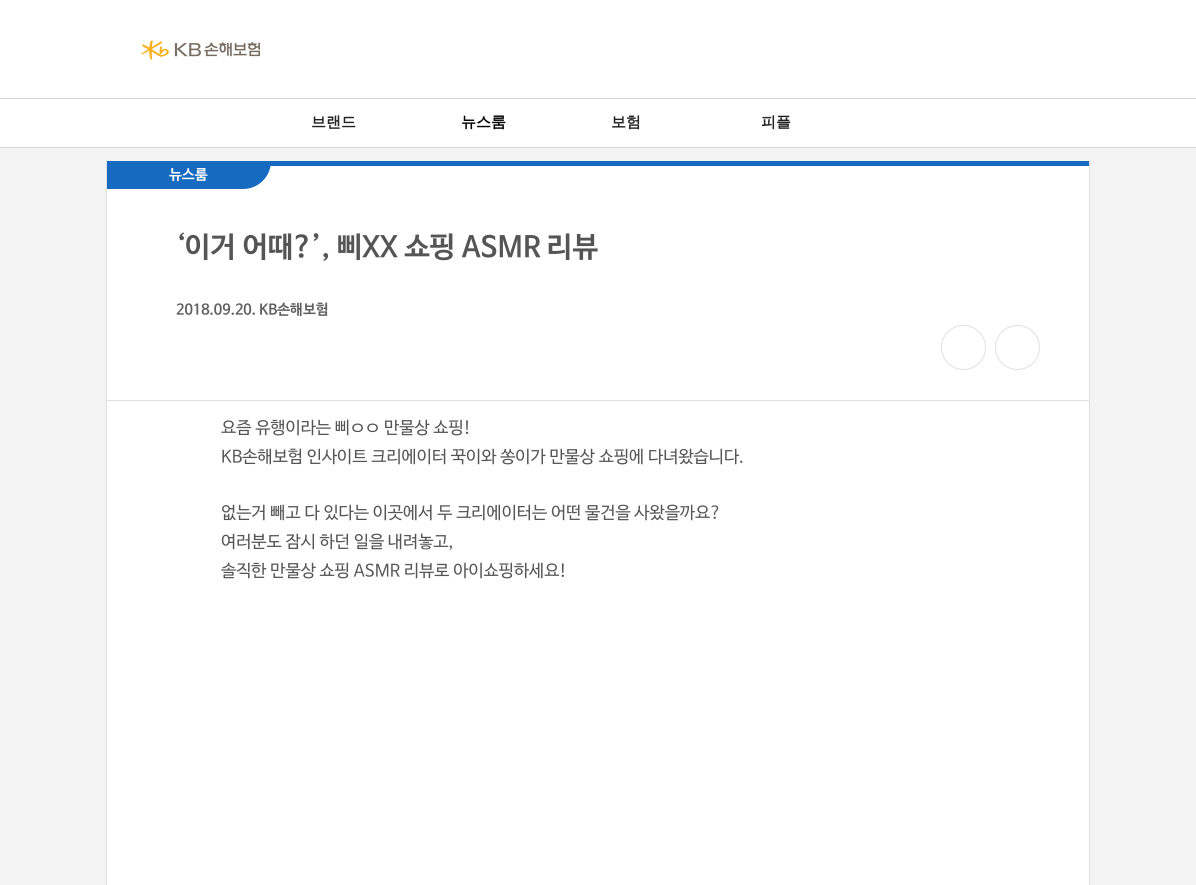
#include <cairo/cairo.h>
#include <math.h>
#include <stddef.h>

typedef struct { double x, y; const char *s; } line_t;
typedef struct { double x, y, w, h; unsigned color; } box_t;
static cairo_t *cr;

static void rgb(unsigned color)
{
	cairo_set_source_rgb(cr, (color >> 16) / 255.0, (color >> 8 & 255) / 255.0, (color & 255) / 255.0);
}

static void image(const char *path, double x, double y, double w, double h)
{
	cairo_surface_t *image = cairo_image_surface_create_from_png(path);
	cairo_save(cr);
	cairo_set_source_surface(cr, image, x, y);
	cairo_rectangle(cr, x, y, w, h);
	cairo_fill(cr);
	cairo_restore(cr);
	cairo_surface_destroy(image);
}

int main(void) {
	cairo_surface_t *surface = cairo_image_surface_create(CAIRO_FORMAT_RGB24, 1196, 885);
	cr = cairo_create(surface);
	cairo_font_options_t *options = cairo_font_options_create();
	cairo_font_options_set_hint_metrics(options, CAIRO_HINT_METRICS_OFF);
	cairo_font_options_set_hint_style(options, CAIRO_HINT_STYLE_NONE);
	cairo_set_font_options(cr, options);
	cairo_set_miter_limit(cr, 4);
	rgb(0xf3f3f3);
	cairo_paint(cr);
	rgb(0xffffff);
	cairo_rectangle(cr, 0, 0, 1196, 147);
	cairo_fill(cr);
	image("img/1.png", 141, 40, 119, 20);
	{
		static const box_t items[] = {
			{0, 98, 1196, 1, 0xd8d8d8},
			{0, 147, 1196, 1, 0xd8d8d8},
			{107, 166, 982, 719, 0xffffff},
			{1089, 161, 1, 724, 0xe0e0e0},
			{106, 161, 1, 724, 0xe0e0e0},
			{107, 400, 982, 1, 0xe0e0e0},
			{107, 161, 982, 5, 0x166abf},
		};
		for (size_t i = 0; i < sizeof items / sizeof *items; i++) {
			rgb(items[i].color);
			cairo_rectangle(cr, items[i].x, items[i].y, items[i].w, items[i].h);
			cairo_fill(cr);
		}
	}
	cairo_new_path(cr);
	cairo_move_to(cr, 107, 166);
	cairo_line_to(cr, 271, 166);
	cairo_line_to(cr, 271, 161);
	cairo_curve_to(cr, 271, 176.5, 258.5, 189, 243, 189);
	cairo_line_to(cr, 107, 189);
	cairo_close_path(cr);
	cairo_fill(cr);
	cairo_arc(cr, 963.5, 347.5, 22, 0, 2 * M_PI);
	rgb(0xe0e0e0);
	cairo_set_line_width(cr, 1);
	cairo_stroke(cr);
	cairo_arc(cr, 1017.5, 347.5, 22, 0, 2 * M_PI);
	cairo_stroke(cr);
	cairo_select_font_face(cr, "WenQuanYi Zen Hei", CAIRO_FONT_SLANT_NORMAL, CAIRO_FONT_WEIGHT_BOLD);
	cairo_set_font_size(cr, 15);
	rgb(0x222222);
	cairo_move_to(cr, 311, 127);
	cairo_show_text(cr, "브랜드");
	rgb(0x000000);
	cairo_move_to(cr, 461, 127);
	cairo_show_text(cr, "뉴스룸");
	rgb(0x222222);
	cairo_move_to(cr, 611, 127);
	cairo_show_text(cr, "보험");
	cairo_move_to(cr, 761, 127);
	cairo_show_text(cr, "피플");
	cairo_select_font_face(cr, "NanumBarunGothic", CAIRO_FONT_SLANT_NORMAL, CAIRO_FONT_WEIGHT_BOLD);
	cairo_set_font_size(cr, 14.4);
	rgb(0xffffff);
	cairo_move_to(cr, 169, 179);
	cairo_show_text(cr, "뉴스룸");
	cairo_set_font_size(cr, 28.75);
	rgb(0x555555);
	cairo_move_to(cr, 176, 256);
	cairo_show_text(cr, "‘이거 어때?’, 삐XX 쇼핑 ASMR 리뷰");
	cairo_set_font_size(cr, 14.4);
	rgb(0x5e5e5e);
	cairo_move_to(cr, 176, 314);
	cairo_show_text(cr, "2018.09.20. KB손해보험");
	cairo_select_font_face(cr, "NanumBarunGothic", CAIRO_FONT_SLANT_NORMAL, CAIRO_FONT_WEIGHT_NORMAL);
	cairo_set_font_size(cr, 17);
	rgb(0x555555);
	{
		static const line_t items[] = {
			{221, 433, "요즘 유행이라는 삐ㅇㅇ 만물상 쇼핑!"},
			{221, 462, "KB손해보험 인사이트 크리에이터 꾹이와 쏭이가 만물상 쇼핑에 다녀왔습니다."},
			{221, 518, "없는거 빼고 다 있다는 이곳에서 두 크리에이터는 어떤 물건을 사왔을까요?"},
			{221, 547, "여러분도 잠시 하던 일을 내려놓고,"},
			{221, 576, "솔직한 만물상 쇼핑 ASMR 리뷰로 아이쇼핑하세요!"},
		};
		for (size_t i = 0; i < sizeof items / sizeof *items; i++) {
			cairo_move_to(cr, items[i].x, items[i].y);
			cairo_show_text(cr, items[i].s);
		}
	}
	cairo_surface_write_to_png(surface, "page.png");
	cairo_font_options_destroy(options);
	cairo_destroy(cr);
	cairo_surface_destroy(surface);
	return 0;
}
